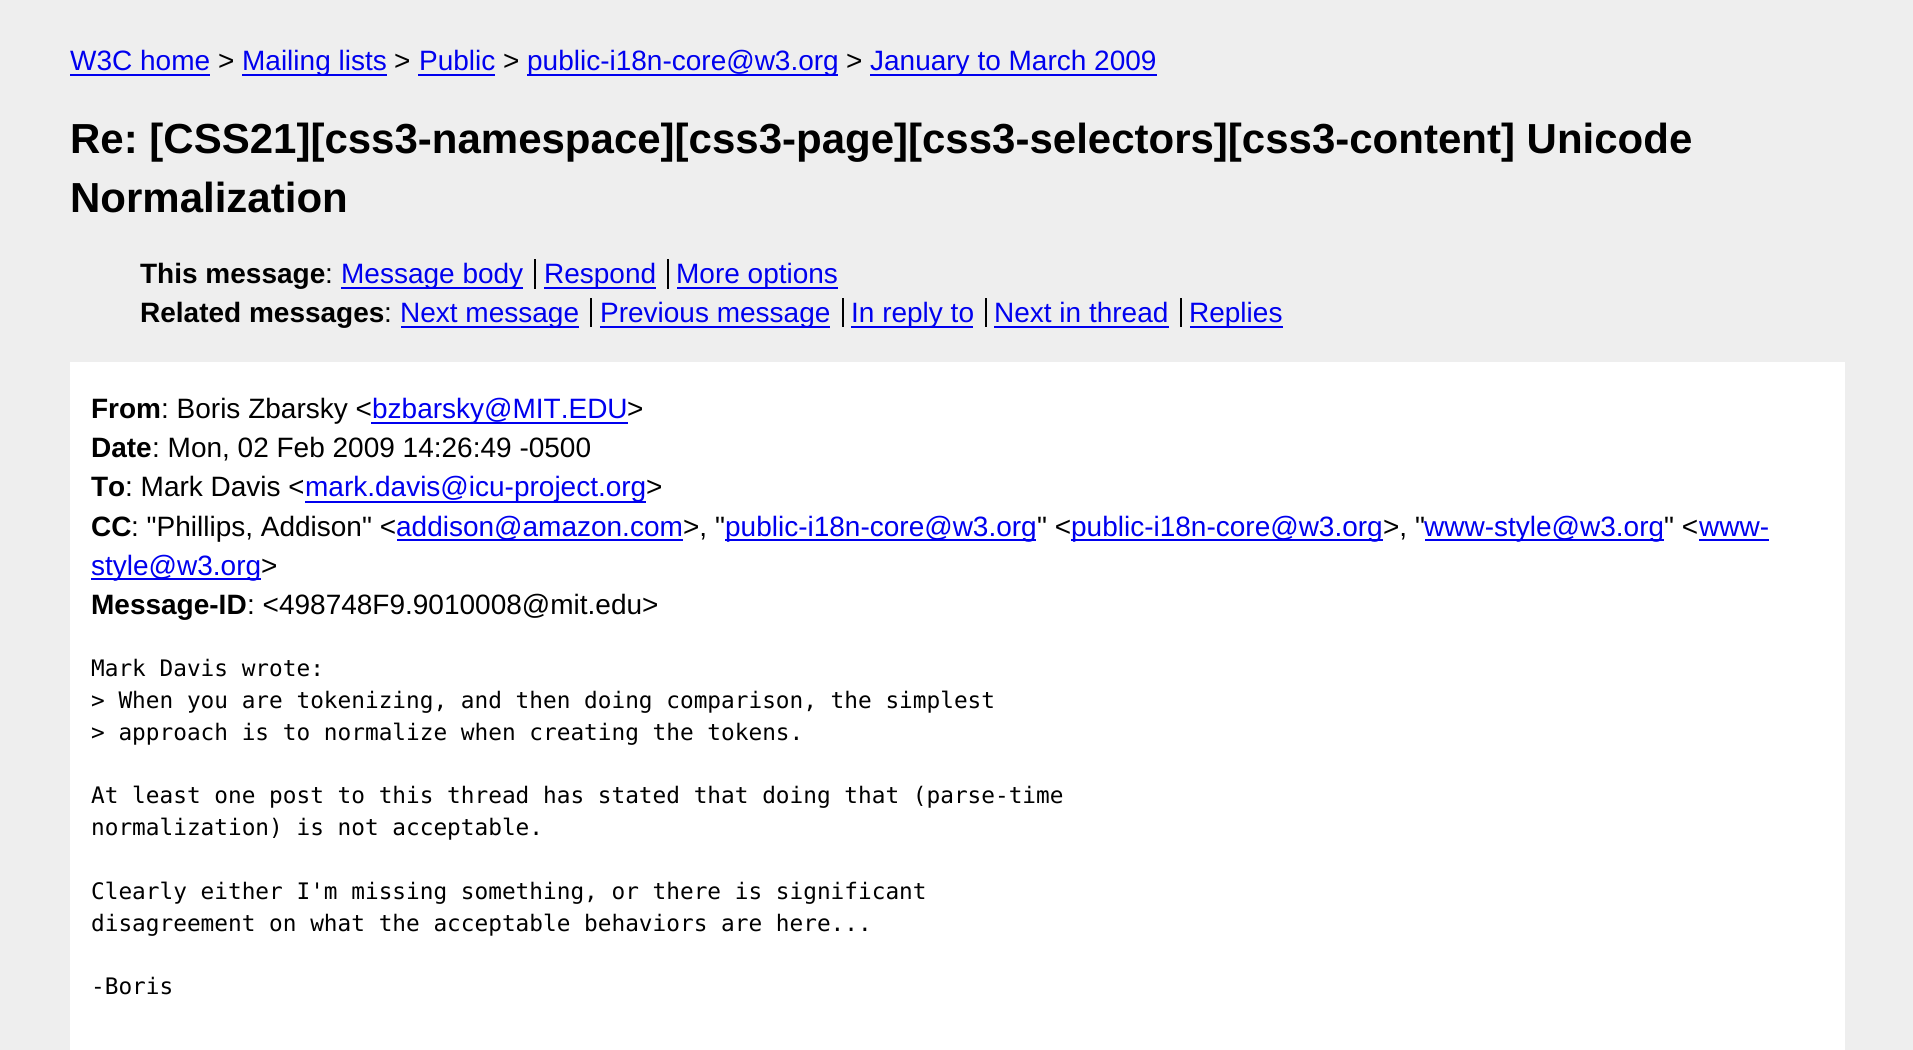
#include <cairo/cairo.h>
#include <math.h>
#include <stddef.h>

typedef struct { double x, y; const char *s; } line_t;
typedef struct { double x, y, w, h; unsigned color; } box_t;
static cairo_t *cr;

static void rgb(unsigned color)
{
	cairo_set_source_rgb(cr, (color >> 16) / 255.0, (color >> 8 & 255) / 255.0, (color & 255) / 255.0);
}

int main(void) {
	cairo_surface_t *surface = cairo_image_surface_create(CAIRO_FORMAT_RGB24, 1913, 1050);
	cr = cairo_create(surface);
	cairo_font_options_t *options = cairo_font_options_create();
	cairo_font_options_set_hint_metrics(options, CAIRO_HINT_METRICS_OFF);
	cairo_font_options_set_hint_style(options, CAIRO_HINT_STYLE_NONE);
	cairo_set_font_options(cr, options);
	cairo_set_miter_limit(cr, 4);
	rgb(0xeeeeee);
	cairo_paint(cr);
	{
		static const box_t items[] = {
			{70, 74, 140, 2, 0x0000ee},
			{242, 74, 145, 2, 0x0000ee},
			{418, 74, 77, 2, 0x0000ee},
			{527, 74, 311, 2, 0x0000ee},
			{870, 74, 287, 2, 0x0000ee},
			{341, 287, 182, 2, 0x0000ee},
			{534, 259, 2, 30, 0x000000},
			{544, 287, 112, 2, 0x0000ee},
			{667, 259, 2, 30, 0x000000},
			{677, 287, 161, 2, 0x0000ee},
			{401, 326, 178, 2, 0x0000ee},
			{590, 298, 2, 29, 0x000000},
			{600, 326, 230, 2, 0x0000ee},
			{842, 298, 2, 29, 0x000000},
			{851, 326, 122, 2, 0x0000ee},
			{985, 298, 2, 29, 0x000000},
			{994, 326, 175, 2, 0x0000ee},
			{1180, 298, 2, 29, 0x000000},
			{1190, 326, 93, 2, 0x0000ee},
			{70, 362, 1775, 688, 0xffffff},
			{371, 422, 257, 2, 0x0000ee},
			{305, 501, 341, 2, 0x0000ee},
			{397, 539, 286, 2, 0x0000ee},
			{725, 539, 311, 2, 0x0000ee},
			{1071, 539, 312, 2, 0x0000ee},
			{1425, 539, 239, 2, 0x0000ee},
			{1699, 539, 70, 2, 0x0000ee},
			{91, 578, 170, 2, 0x0000ee},
		};
		for (size_t i = 0; i < sizeof items / sizeof *items; i++) {
			rgb(items[i].color);
			cairo_rectangle(cr, items[i].x, items[i].y, items[i].w, items[i].h);
			cairo_fill(cr);
		}
	}
	cairo_select_font_face(cr, "Liberation Sans", CAIRO_FONT_SLANT_NORMAL, CAIRO_FONT_WEIGHT_NORMAL);
	cairo_set_font_size(cr, 28);
	cairo_move_to(cr, 70, 70);
	cairo_show_text(cr, "W3C home");
	rgb(0x000000);
	cairo_move_to(cr, 218, 70);
	cairo_show_text(cr, ">");
	rgb(0x0000ee);
	cairo_move_to(cr, 242, 70);
	cairo_show_text(cr, "Mailing lists");
	rgb(0x000000);
	cairo_move_to(cr, 394, 70);
	cairo_show_text(cr, ">");
	rgb(0x0000ee);
	cairo_move_to(cr, 419, 70);
	cairo_show_text(cr, "Public");
	rgb(0x000000);
	cairo_move_to(cr, 503, 70);
	cairo_show_text(cr, ">");
	rgb(0x0000ee);
	cairo_move_to(cr, 527, 70);
	cairo_show_text(cr, "public-i18n-core@w3.org");
	rgb(0x000000);
	cairo_move_to(cr, 846, 70);
	cairo_show_text(cr, ">");
	rgb(0x0000ee);
	cairo_move_to(cr, 870, 70);
	cairo_show_text(cr, "January to March 2009");
	cairo_select_font_face(cr, "Liberation Sans", CAIRO_FONT_SLANT_NORMAL, CAIRO_FONT_WEIGHT_BOLD);
	cairo_set_font_size(cr, 42);
	rgb(0x000000);
	cairo_move_to(cr, 70, 153);
	cairo_show_text(cr, "Re: [CSS21][css3-namespace][css3-page][css3-selectors][css3-content] Unicode");
	cairo_move_to(cr, 70, 212);
	cairo_show_text(cr, "Normalization");
	cairo_set_font_size(cr, 28);
	cairo_move_to(cr, 140, 283);
	cairo_show_text(cr, "This message");
	cairo_select_font_face(cr, "Liberation Sans", CAIRO_FONT_SLANT_NORMAL, CAIRO_FONT_WEIGHT_NORMAL);
	cairo_move_to(cr, 325, 283);
	cairo_show_text(cr, ":");
	rgb(0x0000ee);
	{
		static const line_t items[] = {
			{341, 283, "Message body"},
			{544, 283, "Respond"},
			{676, 283, "More options"},
		};
		for (size_t i = 0; i < sizeof items / sizeof *items; i++) {
			cairo_move_to(cr, items[i].x, items[i].y);
			cairo_show_text(cr, items[i].s);
		}
	}
	cairo_select_font_face(cr, "Liberation Sans", CAIRO_FONT_SLANT_NORMAL, CAIRO_FONT_WEIGHT_BOLD);
	rgb(0x000000);
	cairo_move_to(cr, 140, 322);
	cairo_show_text(cr, "Related messages");
	cairo_select_font_face(cr, "Liberation Sans", CAIRO_FONT_SLANT_NORMAL, CAIRO_FONT_WEIGHT_NORMAL);
	cairo_move_to(cr, 384, 322);
	cairo_show_text(cr, ":");
	rgb(0x0000ee);
	{
		static const line_t items[] = {
			{400, 322, "Next message"},
			{600, 322, "Previous message"},
			{851, 322, "In reply to"},
			{994, 322, "Next in thread"},
			{1189, 322, "Replies"},
		};
		for (size_t i = 0; i < sizeof items / sizeof *items; i++) {
			cairo_move_to(cr, items[i].x, items[i].y);
			cairo_show_text(cr, items[i].s);
		}
	}
	cairo_select_font_face(cr, "Liberation Sans", CAIRO_FONT_SLANT_NORMAL, CAIRO_FONT_WEIGHT_BOLD);
	rgb(0x000000);
	cairo_move_to(cr, 91, 418);
	cairo_show_text(cr, "From");
	cairo_select_font_face(cr, "Liberation Sans", CAIRO_FONT_SLANT_NORMAL, CAIRO_FONT_WEIGHT_NORMAL);
	cairo_move_to(cr, 161, 418);
	cairo_show_text(cr, ": Boris Zbarsky <");
	rgb(0x0000ee);
	cairo_move_to(cr, 372, 418);
	cairo_show_text(cr, "bzbarsky@MIT.EDU");
	rgb(0x000000);
	cairo_move_to(cr, 627, 418);
	cairo_show_text(cr, ">");
	cairo_select_font_face(cr, "Liberation Sans", CAIRO_FONT_SLANT_NORMAL, CAIRO_FONT_WEIGHT_BOLD);
	cairo_move_to(cr, 91, 457);
	cairo_show_text(cr, "Date");
	cairo_select_font_face(cr, "Liberation Sans", CAIRO_FONT_SLANT_NORMAL, CAIRO_FONT_WEIGHT_NORMAL);
	cairo_move_to(cr, 152, 457);
	cairo_show_text(cr, ": Mon, 02 Feb 2009 14:26:49 -0500");
	cairo_select_font_face(cr, "Liberation Sans", CAIRO_FONT_SLANT_NORMAL, CAIRO_FONT_WEIGHT_BOLD);
	cairo_move_to(cr, 91, 496);
	cairo_show_text(cr, "To");
	cairo_select_font_face(cr, "Liberation Sans", CAIRO_FONT_SLANT_NORMAL, CAIRO_FONT_WEIGHT_NORMAL);
	cairo_move_to(cr, 125, 496);
	cairo_show_text(cr, ": Mark Davis <");
	rgb(0x0000ee);
	cairo_move_to(cr, 305, 496);
	cairo_show_text(cr, "mark.davis@icu-project.org");
	rgb(0x000000);
	cairo_move_to(cr, 646, 496);
	cairo_show_text(cr, ">");
	cairo_select_font_face(cr, "Liberation Sans", CAIRO_FONT_SLANT_NORMAL, CAIRO_FONT_WEIGHT_BOLD);
	cairo_move_to(cr, 91, 536);
	cairo_show_text(cr, "CC");
	cairo_select_font_face(cr, "Liberation Sans", CAIRO_FONT_SLANT_NORMAL, CAIRO_FONT_WEIGHT_NORMAL);
	cairo_move_to(cr, 131, 536);
	cairo_show_text(cr, ": \"Phillips, Addison\" <");
	rgb(0x0000ee);
	cairo_move_to(cr, 396, 536);
	cairo_show_text(cr, "addison@amazon.com");
	rgb(0x000000);
	cairo_move_to(cr, 683, 536);
	cairo_show_text(cr, ">, \"");
	rgb(0x0000ee);
	cairo_move_to(cr, 725, 536);
	cairo_show_text(cr, "public-i18n-core@w3.org");
	rgb(0x000000);
	cairo_move_to(cr, 1037, 536);
	cairo_show_text(cr, "\" <");
	rgb(0x0000ee);
	cairo_move_to(cr, 1071, 536);
	cairo_show_text(cr, "public-i18n-core@w3.org");
	rgb(0x000000);
	cairo_move_to(cr, 1383, 536);
	cairo_show_text(cr, ">, \"");
	rgb(0x0000ee);
	cairo_move_to(cr, 1424, 536);
	cairo_show_text(cr, "www-style@w3.org");
	rgb(0x000000);
	cairo_move_to(cr, 1664, 536);
	cairo_show_text(cr, "\" <");
	rgb(0x0000ee);
	cairo_move_to(cr, 1699, 536);
	cairo_show_text(cr, "www-");
	cairo_move_to(cr, 91, 575);
	cairo_show_text(cr, "style@w3.org");
	rgb(0x000000);
	cairo_move_to(cr, 261, 575);
	cairo_show_text(cr, ">");
	cairo_select_font_face(cr, "Liberation Sans", CAIRO_FONT_SLANT_NORMAL, CAIRO_FONT_WEIGHT_BOLD);
	cairo_move_to(cr, 91, 614);
	cairo_show_text(cr, "Message-ID");
	cairo_select_font_face(cr, "Liberation Sans", CAIRO_FONT_SLANT_NORMAL, CAIRO_FONT_WEIGHT_NORMAL);
	cairo_move_to(cr, 247, 614);
	cairo_show_text(cr, ": <498748F9.9010008@mit.edu>");
	cairo_select_font_face(cr, "DejaVu Sans Mono", CAIRO_FONT_SLANT_NORMAL, CAIRO_FONT_WEIGHT_NORMAL);
	cairo_set_font_size(cr, 22.75);
	{
		static const line_t items[] = {
			{91, 676, "Mark Davis wrote:"},
			{91, 708, "> When you are tokenizing, and then doing comparison, the simplest"},
			{91, 740, "> approach is to normalize when creating the tokens."},
			{91, 803, "At least one post to this thread has stated that doing that (parse-time"},
			{91, 835, "normalization) is not acceptable."},
			{91, 899, "Clearly either I'm missing something, or there is significant"},
			{91, 931, "disagreement on what the acceptable behaviors are here..."},
			{91, 994, "-Boris"},
		};
		for (size_t i = 0; i < sizeof items / sizeof *items; i++) {
			cairo_move_to(cr, items[i].x, items[i].y);
			cairo_show_text(cr, items[i].s);
		}
	}
	cairo_surface_write_to_png(surface, "page.png");
	cairo_font_options_destroy(options);
	cairo_destroy(cr);
	cairo_surface_destroy(surface);
	return 0;
}
